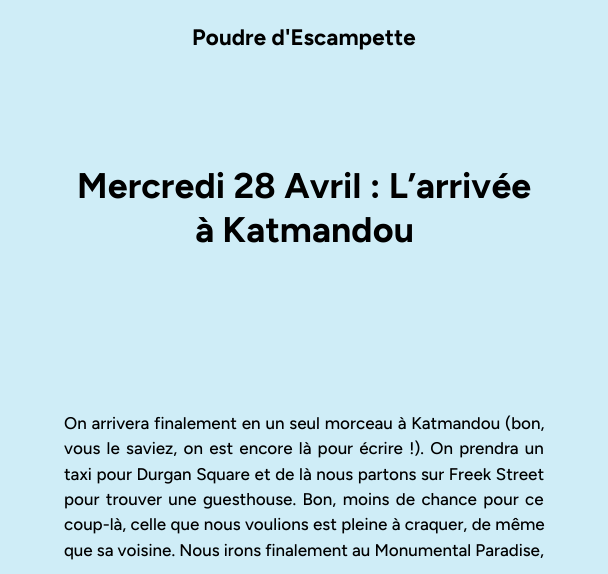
#include <cairo/cairo.h>
#include <math.h>
#include <stddef.h>

static cairo_t *cr;

static void rgb(unsigned color)
{
	cairo_set_source_rgb(cr, (color >> 16) / 255.0, (color >> 8 & 255) / 255.0, (color & 255) / 255.0);
}

static void tracked(double x, double y, const char *s, double letter, double word)
{
	cairo_move_to(cr, x, y);
	while (*s) {
		char ch[5] = {0};
		int n = 0;
		do ch[n++] = *s++; while ((*s & 0xC0) == 0x80);
		cairo_show_text(cr, ch);
		cairo_rel_move_to(cr, letter + word * (*ch == ' '), 0);
	}
}

int main(void) {
	cairo_surface_t *surface = cairo_image_surface_create(CAIRO_FORMAT_RGB24, 608, 574);
	cr = cairo_create(surface);
	cairo_font_options_t *options = cairo_font_options_create();
	cairo_font_options_set_hint_metrics(options, CAIRO_HINT_METRICS_OFF);
	cairo_font_options_set_hint_style(options, CAIRO_HINT_STYLE_NONE);
	cairo_set_font_options(cr, options);
	cairo_set_miter_limit(cr, 4);
	rgb(0xcfedf7);
	cairo_paint(cr);
	cairo_select_font_face(cr, "Figtree", CAIRO_FONT_SLANT_NORMAL, CAIRO_FONT_WEIGHT_BOLD);
	cairo_set_font_size(cr, 22.4);
	rgb(0x000000);
	cairo_move_to(cr, 192, 45);
	cairo_show_text(cr, "Poudre d'Escampette");
	cairo_set_font_size(cr, 35.6);
	cairo_move_to(cr, 77, 198);
	cairo_show_text(cr, "Mercredi 28 Avril : L’arrivée");
	cairo_move_to(cr, 195, 242);
	cairo_show_text(cr, "à Katmandou");
	cairo_select_font_face(cr, "Figtree Medium", CAIRO_FONT_SLANT_NORMAL, CAIRO_FONT_WEIGHT_NORMAL);
	cairo_set_font_size(cr, 16.9);
	tracked(64, 429, "On arrivera finalement en un seul morceau à Katmandou (bon,", 0, 0.75);
	tracked(64, 454, "vous le saviez, on est encore là pour écrire !). On prendra un", 0, 2.1);
	tracked(64, 480, "taxi pour Durgan Square et de là nous partons sur Freek Street", 0, 0.5);
	tracked(64, 505, "pour trouver une guesthouse. Bon, moins de chance pour ce", 0, 2.25);
	tracked(64, 530, "coup-là, celle que nous voulions est pleine à craquer, de même", 0, 0.25);
	cairo_move_to(cr, 64, 556);
	cairo_show_text(cr, "que sa voisine. Nous irons finalement au Monumental Paradise,");
	cairo_surface_write_to_png(surface, "page.png");
	cairo_font_options_destroy(options);
	cairo_destroy(cr);
	cairo_surface_destroy(surface);
	return 0;
}
